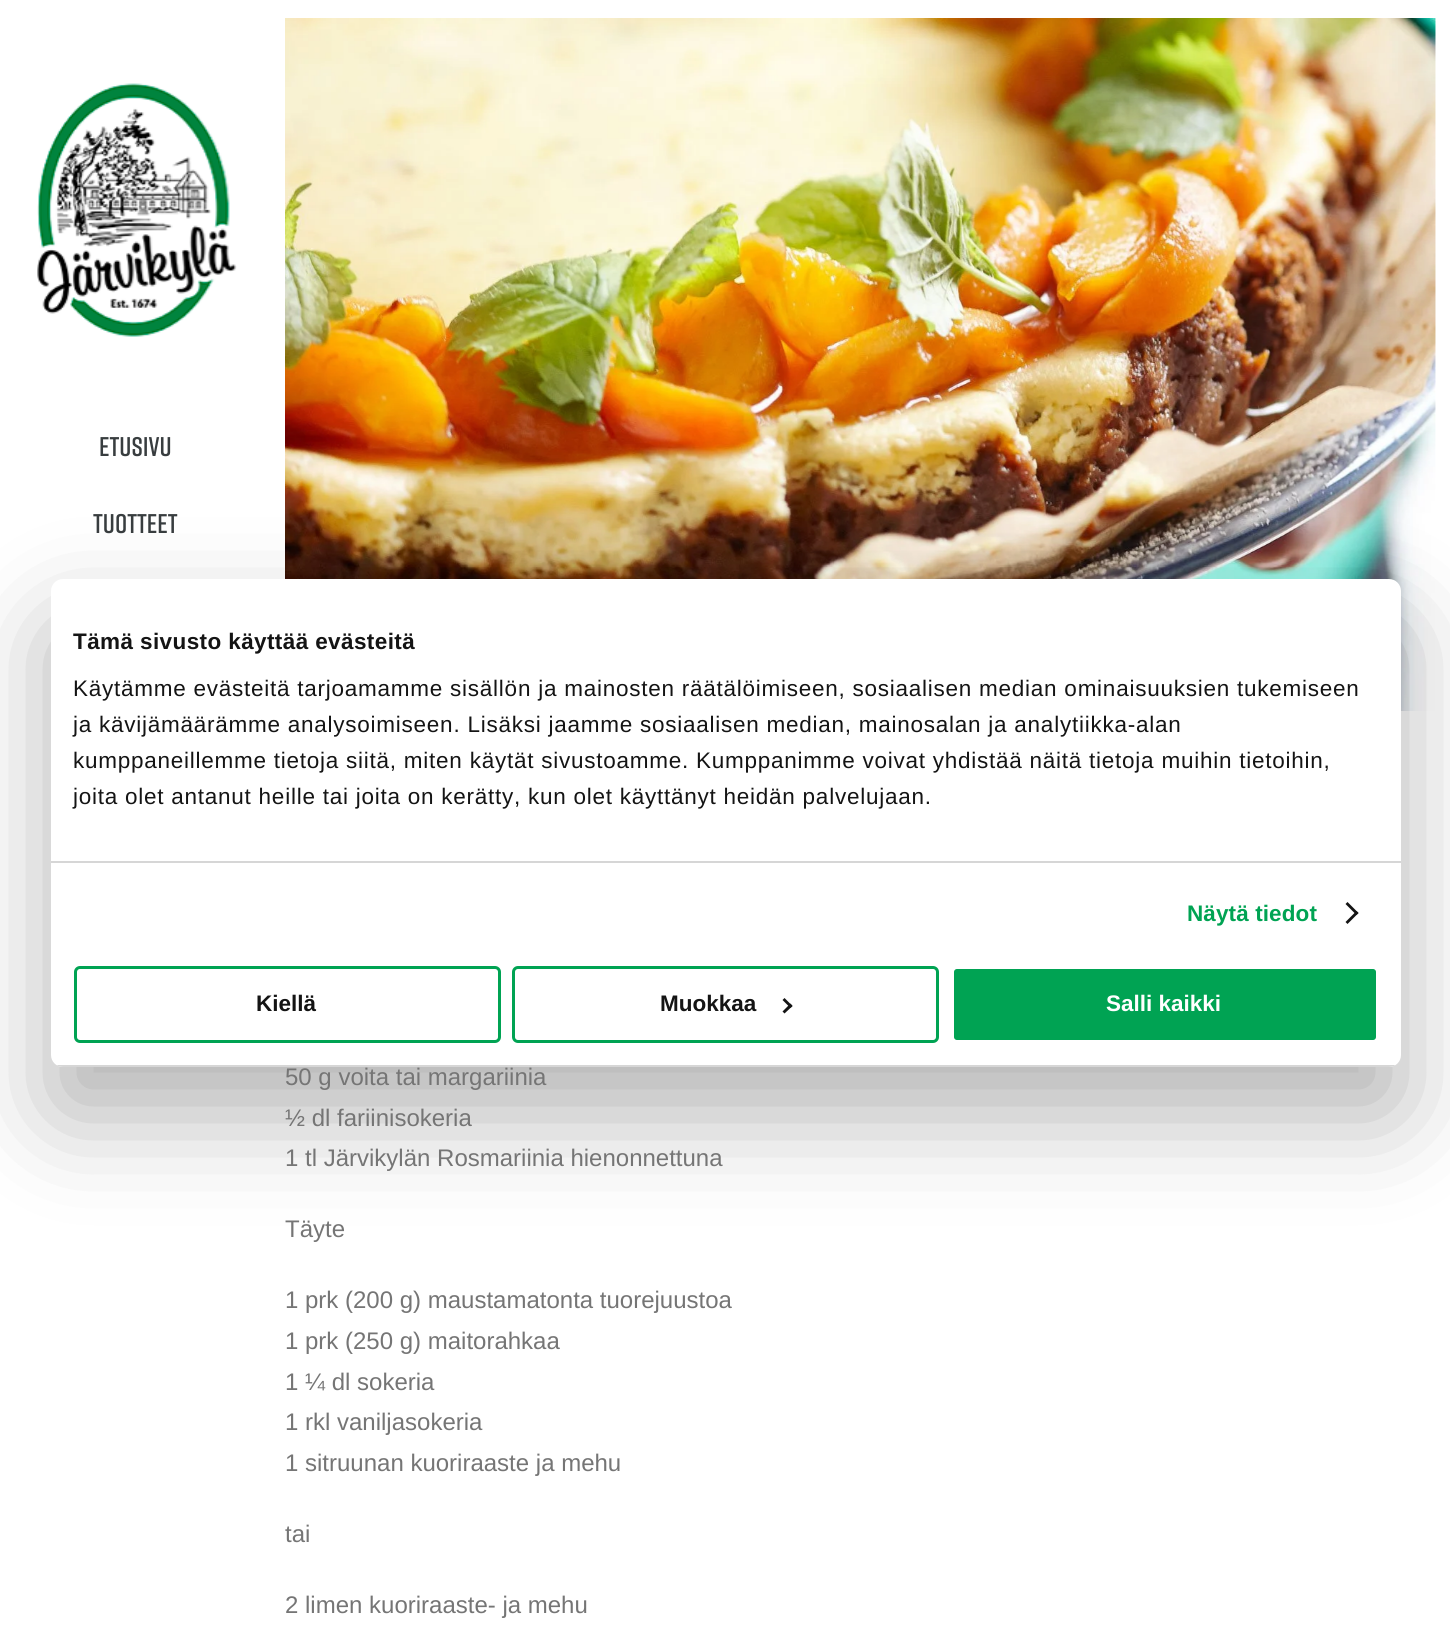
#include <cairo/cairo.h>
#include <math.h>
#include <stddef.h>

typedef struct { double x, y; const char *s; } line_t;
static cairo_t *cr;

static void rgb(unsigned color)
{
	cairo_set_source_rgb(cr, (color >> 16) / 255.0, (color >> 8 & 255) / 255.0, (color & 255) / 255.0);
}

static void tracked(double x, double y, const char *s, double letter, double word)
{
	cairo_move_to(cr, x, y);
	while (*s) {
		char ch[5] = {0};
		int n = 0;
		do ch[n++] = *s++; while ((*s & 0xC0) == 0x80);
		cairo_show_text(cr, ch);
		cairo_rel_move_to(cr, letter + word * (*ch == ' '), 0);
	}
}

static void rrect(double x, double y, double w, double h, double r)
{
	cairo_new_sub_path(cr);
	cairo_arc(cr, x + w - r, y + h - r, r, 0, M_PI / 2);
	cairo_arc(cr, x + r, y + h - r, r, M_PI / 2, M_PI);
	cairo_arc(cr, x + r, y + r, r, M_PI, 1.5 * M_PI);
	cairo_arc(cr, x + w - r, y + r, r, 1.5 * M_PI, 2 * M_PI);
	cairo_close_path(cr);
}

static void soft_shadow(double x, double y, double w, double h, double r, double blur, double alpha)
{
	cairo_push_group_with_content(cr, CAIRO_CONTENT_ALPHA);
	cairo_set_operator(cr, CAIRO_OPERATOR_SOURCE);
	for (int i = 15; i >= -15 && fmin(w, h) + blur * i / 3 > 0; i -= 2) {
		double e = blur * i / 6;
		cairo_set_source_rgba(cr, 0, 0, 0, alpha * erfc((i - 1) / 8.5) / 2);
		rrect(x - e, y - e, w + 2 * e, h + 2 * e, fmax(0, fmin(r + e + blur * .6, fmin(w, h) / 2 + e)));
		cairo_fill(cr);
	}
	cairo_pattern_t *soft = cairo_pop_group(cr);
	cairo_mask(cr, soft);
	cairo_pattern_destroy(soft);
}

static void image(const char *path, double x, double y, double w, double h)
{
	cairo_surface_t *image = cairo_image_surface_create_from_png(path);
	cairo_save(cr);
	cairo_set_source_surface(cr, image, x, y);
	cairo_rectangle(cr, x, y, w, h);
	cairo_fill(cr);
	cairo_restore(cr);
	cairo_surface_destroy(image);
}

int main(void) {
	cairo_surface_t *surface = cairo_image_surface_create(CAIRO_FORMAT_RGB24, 1450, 1643);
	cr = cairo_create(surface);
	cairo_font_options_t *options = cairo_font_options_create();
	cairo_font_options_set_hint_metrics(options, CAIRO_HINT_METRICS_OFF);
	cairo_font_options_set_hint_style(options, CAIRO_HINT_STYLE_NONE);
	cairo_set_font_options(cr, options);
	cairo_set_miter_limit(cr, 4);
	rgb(0xffffff);
	cairo_paint(cr);
	image("img/1.png", 37, 83, 200, 254);
	image("img/2.png", 285, 18, 1151, 693);
	rgb(0x000000);
	soft_shadow(51, 627, 1350, 488, 12, 51, 0.3);
	rgb(0xffffff);
	rrect(51, 579, 1350, 488, 12);
	cairo_fill(cr);
	rgb(0xd6d6d6);
	cairo_rectangle(cr, 51, 861, 1350, 2);
	cairo_fill(cr);
	rgb(0x141414);
	cairo_new_path(cr);
	cairo_move_to(cr, 1347.5, 902);
	cairo_line_to(cr, 1358.5, 913);
	cairo_line_to(cr, 1356.5, 915);
	cairo_line_to(cr, 1345.5, 904);
	cairo_close_path(cr);
	cairo_fill(cr);
	cairo_new_path(cr);
	cairo_move_to(cr, 1356.5, 911);
	cairo_line_to(cr, 1358.5, 913);
	cairo_line_to(cr, 1347.5, 924);
	cairo_line_to(cr, 1345.5, 922);
	cairo_close_path(cr);
	cairo_fill(cr);
	cairo_save(cr);
	rrect(51, 579, 1350, 488, 12);
	cairo_clip(cr);
	rgb(0xd6d6d6);
	cairo_rectangle(cr, 51, 1065, 1350, 2);
	cairo_fill(cr);
	cairo_restore(cr);
	rrect(75.5, 967.5, 424, 74, 4.5);
	rgb(0x00a353);
	cairo_set_line_width(cr, 3);
	cairo_stroke(cr);
	rrect(513.5, 967.5, 424, 74, 4.5);
	cairo_stroke(cr);
	rgb(0x141414);
	cairo_new_path(cr);
	cairo_move_to(cr, 784.5, 998);
	cairo_line_to(cr, 792.5, 1006);
	cairo_line_to(cr, 790.5, 1008);
	cairo_line_to(cr, 782.5, 1000);
	cairo_close_path(cr);
	cairo_fill(cr);
	cairo_new_path(cr);
	cairo_move_to(cr, 790.5, 1003.5);
	cairo_line_to(cr, 792.5, 1006);
	cairo_line_to(cr, 784.5, 1013.5);
	cairo_line_to(cr, 782.5, 1011.5);
	cairo_close_path(cr);
	cairo_fill(cr);
	rgb(0x00a353);
	rrect(952.5, 967.5, 425, 74, 4.5);
	cairo_fill_preserve(cr);
	rgb(0xffffff);
	cairo_stroke(cr);
	cairo_select_font_face(cr, "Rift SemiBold", CAIRO_FONT_SLANT_NORMAL, CAIRO_FONT_WEIGHT_NORMAL);
	cairo_set_font_size(cr, 27);
	rgb(0x383d3f);
	cairo_move_to(cr, 99, 456);
	cairo_show_text(cr, "Etusivu");
	cairo_move_to(cr, 93, 533);
	cairo_show_text(cr, "Tuotteet");
	cairo_select_font_face(cr, "Liberation Sans", CAIRO_FONT_SLANT_NORMAL, CAIRO_FONT_WEIGHT_NORMAL);
	cairo_set_font_size(cr, 24);
	rgb(0x757575);
	{
		static const line_t items[] = {
			{285, 1085, "50 g voita tai margariinia"},
			{285, 1126, "½ dl fariinisokeria"},
			{285, 1166, "1 tl Järvikylän Rosmariinia hienonnettuna"},
			{285, 1237, "Täyte"},
			{285, 1308, "1 prk (200 g) maustamatonta tuorejuustoa"},
			{285, 1349, "1 prk (250 g) maitorahkaa"},
			{285, 1390, "1 ¼ dl sokeria"},
			{285, 1430, "1 rkl vaniljasokeria"},
			{285, 1471, "1 sitruunan kuoriraaste ja mehu"},
			{285, 1542, "tai"},
			{285, 1613, "2 limen kuoriraaste- ja mehu"},
		};
		for (size_t i = 0; i < sizeof items / sizeof *items; i++) {
			cairo_move_to(cr, items[i].x, items[i].y);
			cairo_show_text(cr, items[i].s);
		}
	}
	cairo_select_font_face(cr, "Liberation Sans", CAIRO_FONT_SLANT_NORMAL, CAIRO_FONT_WEIGHT_BOLD);
	cairo_set_font_size(cr, 22.5);
	rgb(0x141414);
	tracked(73, 649, "Tämä sivusto käyttää evästeitä", 0.4, 0);
	cairo_select_font_face(cr, "Liberation Sans", CAIRO_FONT_SLANT_NORMAL, CAIRO_FONT_WEIGHT_NORMAL);
	{
		static const line_t items[] = {
			{73, 696, "Käytämme evästeitä tarjoamamme sisällön ja mainosten räätälöimiseen, sosiaalisen median ominaisuuksien tukemiseen"},
			{73, 732, "ja kävijämäärämme analysoimiseen. Lisäksi jaamme sosiaalisen median, mainosalan ja analytiikka-alan"},
			{73, 768, "kumppaneillemme tietoja siitä, miten käytät sivustoamme. Kumppanimme voivat yhdistää näitä tietoja muihin tietoihin,"},
			{73, 804, "joita olet antanut heille tai joita on kerätty, kun olet käyttänyt heidän palvelujaan."},
		};
		for (size_t i = 0; i < sizeof items / sizeof *items; i++) {
			tracked(items[i].x, items[i].y, items[i].s, 0.75, 0);
		}
	}
	cairo_select_font_face(cr, "Liberation Sans", CAIRO_FONT_SLANT_NORMAL, CAIRO_FONT_WEIGHT_BOLD);
	rgb(0x00a353);
	tracked(1187, 921, "Näytä tiedot", 0.1, 0);
	rgb(0x141414);
	cairo_move_to(cr, 256, 1011);
	cairo_show_text(cr, "Kiellä");
	cairo_move_to(cr, 660, 1011);
	cairo_show_text(cr, "Muokkaa");
	rgb(0xffffff);
	cairo_move_to(cr, 1106, 1011);
	cairo_show_text(cr, "Salli kaikki");
	cairo_surface_write_to_png(surface, "page.png");
	cairo_font_options_destroy(options);
	cairo_destroy(cr);
	cairo_surface_destroy(surface);
	return 0;
}
